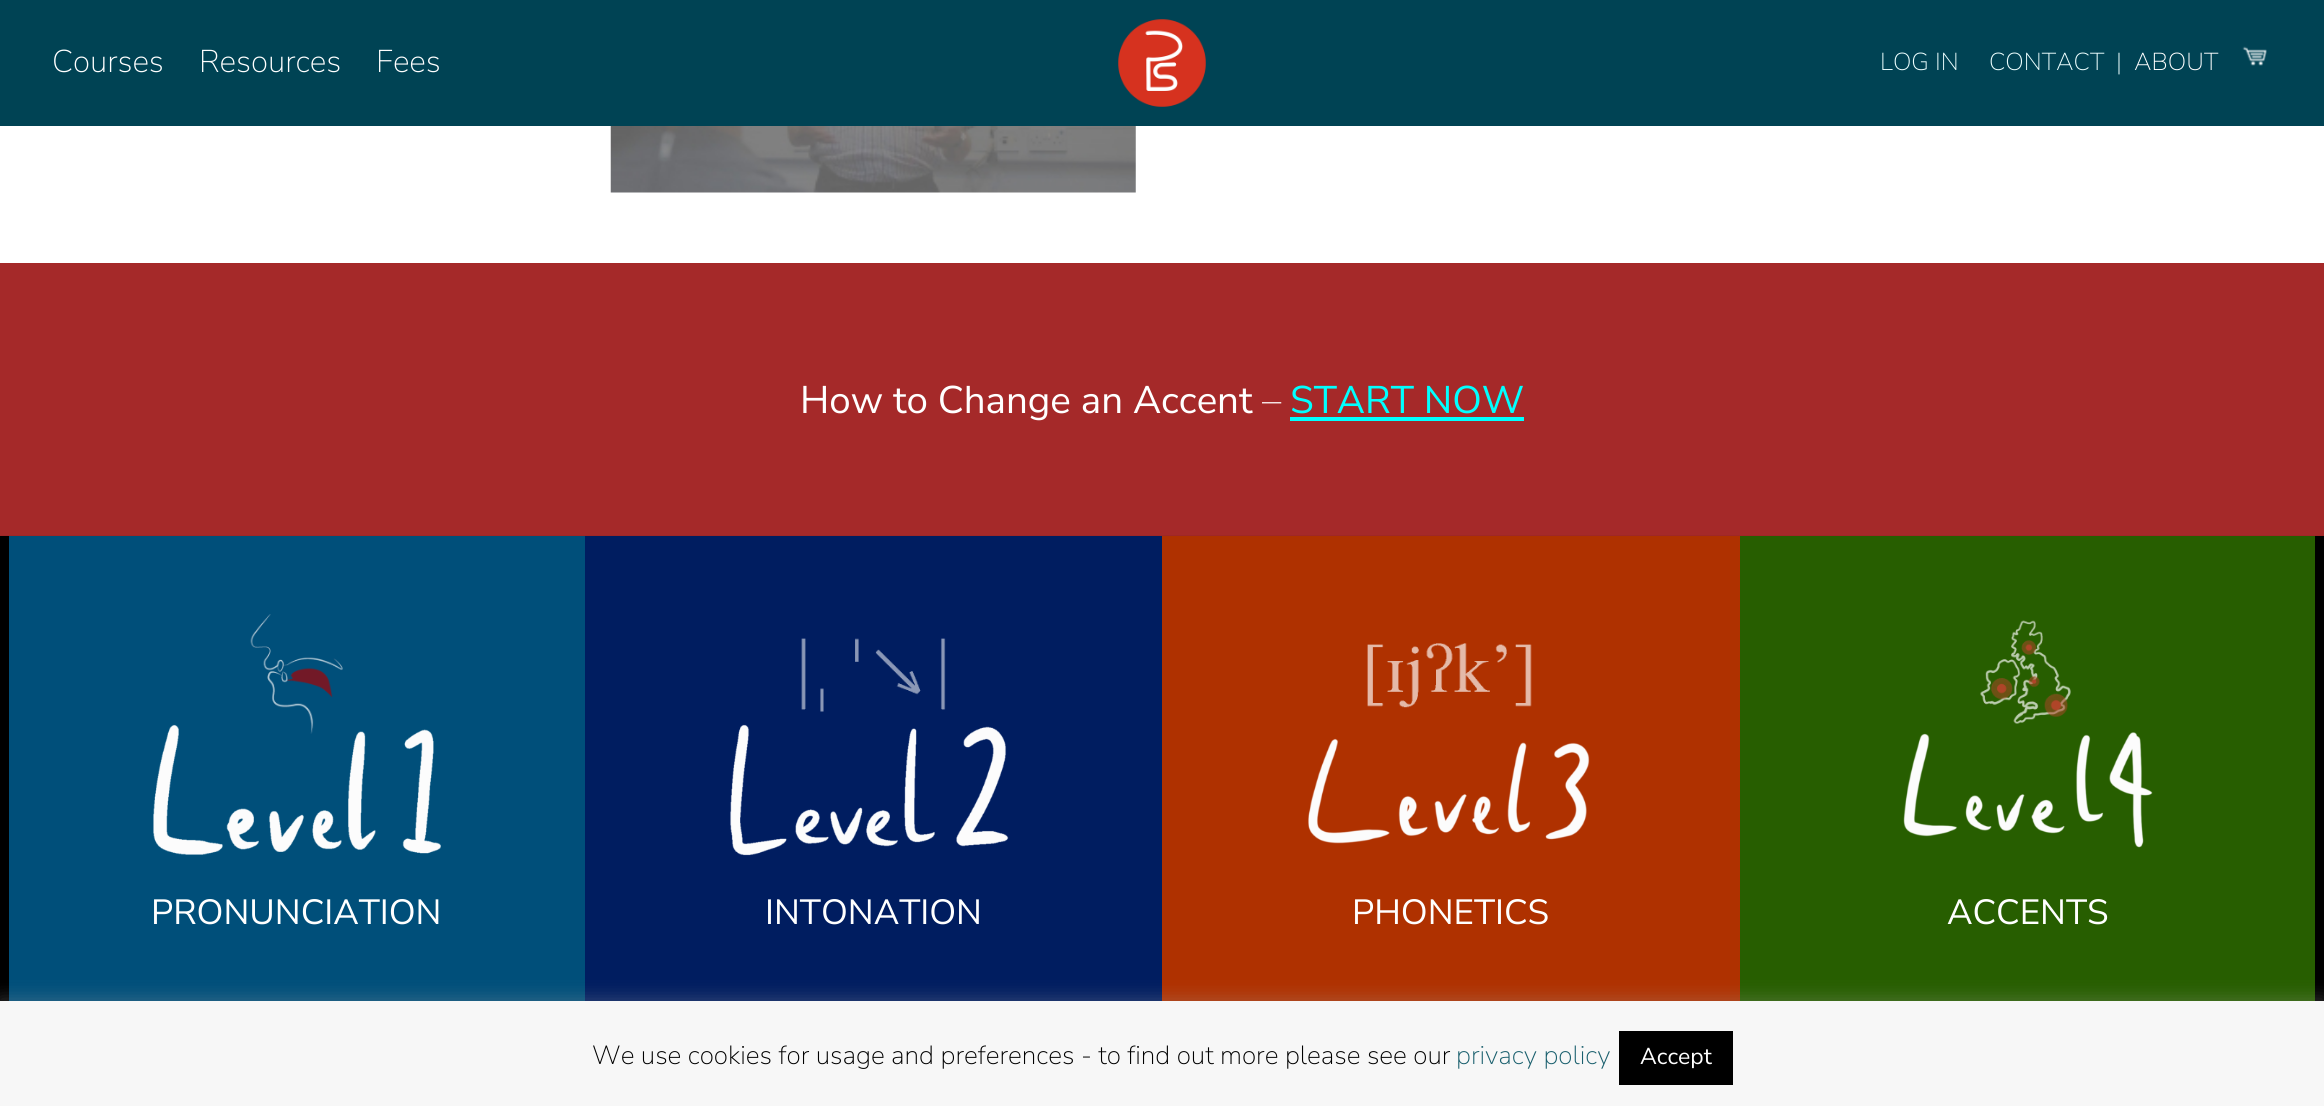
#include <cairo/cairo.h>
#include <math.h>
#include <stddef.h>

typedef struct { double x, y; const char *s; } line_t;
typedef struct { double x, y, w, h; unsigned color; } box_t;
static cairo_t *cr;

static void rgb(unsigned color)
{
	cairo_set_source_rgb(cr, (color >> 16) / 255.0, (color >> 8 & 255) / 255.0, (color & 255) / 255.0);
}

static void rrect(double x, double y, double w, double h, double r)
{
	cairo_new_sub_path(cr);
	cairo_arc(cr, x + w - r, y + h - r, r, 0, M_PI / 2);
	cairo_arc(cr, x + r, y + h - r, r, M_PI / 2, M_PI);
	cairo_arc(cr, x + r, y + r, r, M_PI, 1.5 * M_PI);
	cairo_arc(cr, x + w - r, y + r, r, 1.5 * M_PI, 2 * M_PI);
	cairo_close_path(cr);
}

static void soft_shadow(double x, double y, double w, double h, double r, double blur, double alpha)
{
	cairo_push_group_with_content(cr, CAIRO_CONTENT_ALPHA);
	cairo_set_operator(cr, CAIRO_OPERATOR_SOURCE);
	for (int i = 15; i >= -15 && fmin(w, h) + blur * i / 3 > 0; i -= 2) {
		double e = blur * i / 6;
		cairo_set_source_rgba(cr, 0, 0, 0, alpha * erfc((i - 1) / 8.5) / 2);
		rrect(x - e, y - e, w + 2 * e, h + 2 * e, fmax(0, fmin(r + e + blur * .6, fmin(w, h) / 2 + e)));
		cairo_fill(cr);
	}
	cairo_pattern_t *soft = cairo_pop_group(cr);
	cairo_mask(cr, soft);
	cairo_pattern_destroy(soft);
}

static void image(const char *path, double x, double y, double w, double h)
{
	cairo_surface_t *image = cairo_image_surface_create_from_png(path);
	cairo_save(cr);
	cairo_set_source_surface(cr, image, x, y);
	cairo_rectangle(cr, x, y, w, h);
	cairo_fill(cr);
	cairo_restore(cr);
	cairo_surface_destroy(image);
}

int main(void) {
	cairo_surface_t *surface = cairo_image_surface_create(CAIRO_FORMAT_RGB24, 2324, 1106);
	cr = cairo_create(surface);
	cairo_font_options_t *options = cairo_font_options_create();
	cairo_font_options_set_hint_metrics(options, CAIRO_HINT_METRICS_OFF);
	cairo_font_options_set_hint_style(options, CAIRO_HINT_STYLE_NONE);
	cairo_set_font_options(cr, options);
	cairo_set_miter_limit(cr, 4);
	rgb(0xffffff);
	cairo_paint(cr);
	rgb(0x004354);
	cairo_rectangle(cr, 0, 0, 2324, 126);
	cairo_fill(cr);
	image("img/1.png", 1118, 19, 88, 88);
	image("img/2.png", 2242, 46, 25, 20);
	image("img/3.png", 610, 126, 526, 67);
	{
		static const box_t items[] = {
			{0, 535, 2324, 1, 0x9e2727},
			{0, 263, 2324, 272, 0xa52929},
			{1290, 417, 234, 4, 0x00ffff},
			{0, 536, 2324, 465, 0x000000},
			{9, 536, 576, 465, 0x004f7a},
		};
		for (size_t i = 0; i < sizeof items / sizeof *items; i++) {
			rgb(items[i].color);
			cairo_rectangle(cr, items[i].x, items[i].y, items[i].w, items[i].h);
			cairo_fill(cr);
		}
	}
	image("img/4.png", 250, 614, 93, 120);
	image("img/5.png", 153, 724, 288, 131);
	rgb(0x001d60);
	cairo_rectangle(cr, 585, 536, 577, 465);
	cairo_fill(cr);
	image("img/6.png", 801, 638, 145, 74);
	image("img/7.png", 730, 724, 279, 132);
	rgb(0xaf3100);
	cairo_rectangle(cr, 1162, 536, 578, 465);
	cairo_fill(cr);
	image("img/8.png", 1367, 643, 165, 65);
	image("img/9.png", 1308, 738, 282, 106);
	rgb(0x275e00);
	cairo_rectangle(cr, 1740, 536, 575, 465);
	cairo_fill(cr);
	image("img/10.png", 1980, 620, 91, 104);
	image("img/11.png", 1903, 732, 250, 116);
	rgb(0xacabab);
	soft_shadow(0, 999, 2324, 105, 0, 9, 0.3);
	rgb(0xf7f7f7);
	cairo_rectangle(cr, 0, 1001, 2324, 105);
	cairo_fill(cr);
	rgb(0x000000);
	cairo_rectangle(cr, 1619, 1031, 114, 54);
	cairo_fill(cr);
	cairo_select_font_face(cr, "Nunito Sans ExtraLight", CAIRO_FONT_SLANT_NORMAL, CAIRO_FONT_WEIGHT_NORMAL);
	cairo_set_font_size(cr, 31.5);
	rgb(0xffffff);
	{
		static const line_t items[] = {
			{52, 72, "Courses"},
			{199, 72, "Resources"},
			{376, 72, "Fees"},
		};
		for (size_t i = 0; i < sizeof items / sizeof *items; i++) {
			cairo_move_to(cr, items[i].x, items[i].y);
			cairo_show_text(cr, items[i].s);
		}
	}
	cairo_set_font_size(cr, 24.5);
	rgb(0xedffff);
	{
		static const line_t items[] = {
			{1880, 70, "LOG IN"},
			{1989, 70, "CONTACT"},
			{2116, 70, "|"},
		};
		for (size_t i = 0; i < sizeof items / sizeof *items; i++) {
			cairo_move_to(cr, items[i].x, items[i].y);
			cairo_show_text(cr, items[i].s);
		}
	}
	rgb(0xffffff);
	cairo_move_to(cr, 2134, 70);
	cairo_show_text(cr, "ABOUT");
	cairo_select_font_face(cr, "Nunito Sans", CAIRO_FONT_SLANT_NORMAL, CAIRO_FONT_WEIGHT_NORMAL);
	cairo_set_font_size(cr, 38.5);
	cairo_move_to(cr, 800, 413);
	cairo_show_text(cr, "How to Change an Accent");
	cairo_select_font_face(cr, "Nunito Sans ExtraLight", CAIRO_FONT_SLANT_NORMAL, CAIRO_FONT_WEIGHT_NORMAL);
	cairo_move_to(cr, 1262, 413);
	cairo_show_text(cr, "–");
	cairo_select_font_face(cr, "Nunito Sans", CAIRO_FONT_SLANT_NORMAL, CAIRO_FONT_WEIGHT_NORMAL);
	rgb(0x00ffff);
	cairo_move_to(cr, 1290, 413);
	cairo_show_text(cr, "START NOW");
	cairo_set_font_size(cr, 35);
	rgb(0xffffff);
	{
		static const line_t items[] = {
			{151, 924, "PRONUNCIATION"},
			{765, 924, "INTONATION"},
			{1352, 924, "PHONETICS"},
			{1947, 924, "ACCENTS"},
		};
		for (size_t i = 0; i < sizeof items / sizeof *items; i++) {
			cairo_move_to(cr, items[i].x, items[i].y);
			cairo_show_text(cr, items[i].s);
		}
	}
	cairo_select_font_face(cr, "Nunito Sans ExtraLight", CAIRO_FONT_SLANT_NORMAL, CAIRO_FONT_WEIGHT_NORMAL);
	cairo_set_font_size(cr, 26.25);
	rgb(0x000000);
	cairo_move_to(cr, 592, 1064);
	cairo_show_text(cr, "We use cookies for usage and preferences - to find out more please see our");
	rgb(0x195f6d);
	cairo_move_to(cr, 1456, 1064);
	cairo_show_text(cr, "privacy policy");
	cairo_select_font_face(cr, "Nunito Sans", CAIRO_FONT_SLANT_NORMAL, CAIRO_FONT_WEIGHT_NORMAL);
	cairo_set_font_size(cr, 23);
	rgb(0xffffff);
	cairo_move_to(cr, 1640, 1064);
	cairo_show_text(cr, "Accept");
	cairo_surface_write_to_png(surface, "page.png");
	cairo_font_options_destroy(options);
	cairo_destroy(cr);
	cairo_surface_destroy(surface);
	return 0;
}
